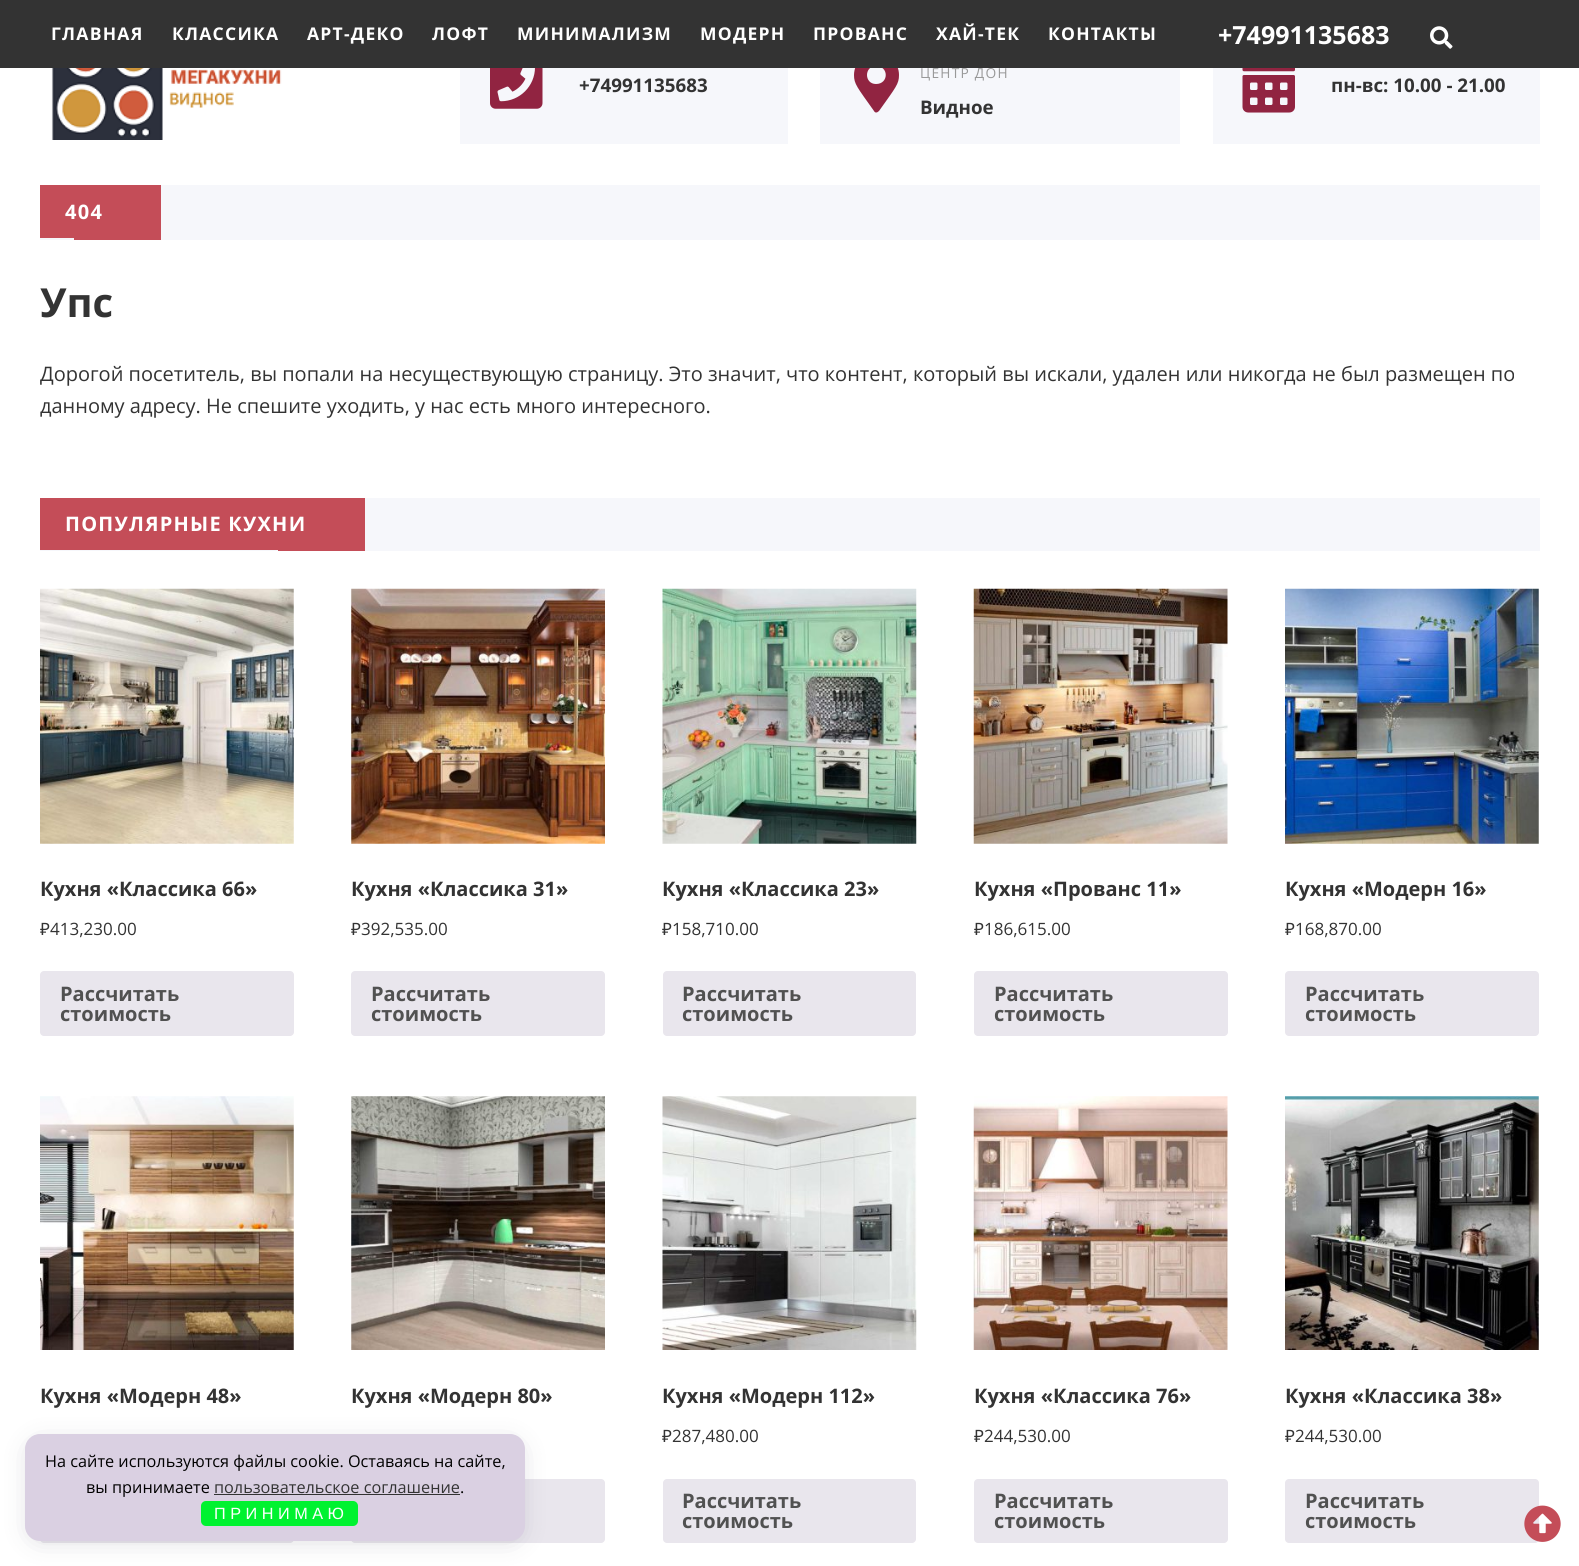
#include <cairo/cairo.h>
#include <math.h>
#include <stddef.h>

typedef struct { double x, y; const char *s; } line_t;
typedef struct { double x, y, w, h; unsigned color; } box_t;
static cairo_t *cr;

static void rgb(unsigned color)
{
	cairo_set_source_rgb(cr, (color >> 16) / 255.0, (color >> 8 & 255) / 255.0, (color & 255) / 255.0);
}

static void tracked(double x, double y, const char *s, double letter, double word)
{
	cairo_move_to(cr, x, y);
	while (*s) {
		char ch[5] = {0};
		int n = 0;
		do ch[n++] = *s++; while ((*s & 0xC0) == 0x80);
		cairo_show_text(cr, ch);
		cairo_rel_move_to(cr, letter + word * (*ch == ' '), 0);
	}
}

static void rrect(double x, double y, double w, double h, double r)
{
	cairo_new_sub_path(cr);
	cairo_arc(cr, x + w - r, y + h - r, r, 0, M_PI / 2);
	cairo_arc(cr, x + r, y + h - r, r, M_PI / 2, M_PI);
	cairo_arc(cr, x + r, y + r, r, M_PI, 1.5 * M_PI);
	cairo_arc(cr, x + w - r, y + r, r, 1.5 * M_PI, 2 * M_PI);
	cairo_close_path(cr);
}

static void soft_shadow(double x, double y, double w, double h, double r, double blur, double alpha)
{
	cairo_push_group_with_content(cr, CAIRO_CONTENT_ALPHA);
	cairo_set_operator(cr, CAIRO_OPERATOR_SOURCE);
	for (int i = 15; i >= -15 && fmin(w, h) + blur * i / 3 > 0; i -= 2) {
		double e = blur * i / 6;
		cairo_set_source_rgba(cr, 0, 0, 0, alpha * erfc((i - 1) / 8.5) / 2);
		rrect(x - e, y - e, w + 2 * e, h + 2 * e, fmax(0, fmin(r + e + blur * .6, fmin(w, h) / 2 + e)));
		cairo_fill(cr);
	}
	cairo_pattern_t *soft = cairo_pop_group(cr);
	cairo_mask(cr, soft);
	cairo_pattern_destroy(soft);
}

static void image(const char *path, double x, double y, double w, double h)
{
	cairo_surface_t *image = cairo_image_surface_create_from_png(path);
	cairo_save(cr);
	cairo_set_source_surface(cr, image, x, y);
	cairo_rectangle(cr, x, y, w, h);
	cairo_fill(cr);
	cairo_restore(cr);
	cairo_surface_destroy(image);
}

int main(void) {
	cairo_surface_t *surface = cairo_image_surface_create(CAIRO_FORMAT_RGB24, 1579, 1566);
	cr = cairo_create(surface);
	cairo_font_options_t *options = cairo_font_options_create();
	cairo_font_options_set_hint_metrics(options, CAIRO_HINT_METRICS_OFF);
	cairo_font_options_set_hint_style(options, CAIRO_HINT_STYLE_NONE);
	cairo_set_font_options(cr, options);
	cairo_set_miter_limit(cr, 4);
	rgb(0xffffff);
	cairo_paint(cr);
	rgb(0xf6f7fb);
	cairo_rectangle(cr, 820, 68, 360, 76);
	cairo_fill(cr);
	rgb(0x912441);
	cairo_new_path(cr);
	cairo_move_to(cr, 874, 111);
	cairo_curve_to(cr, 857, 87, 854, 84, 854, 75);
	cairo_curve_to(cr, 854, 63, 864, 52, 876, 52);
	cairo_curve_to(cr, 889, 52, 899, 63, 899, 75);
	cairo_curve_to(cr, 899, 84, 896, 87, 879, 111);
	cairo_curve_to(cr, 877, 113, 875, 113, 874, 111);
	cairo_close_path(cr);
	cairo_move_to(cr, 876, 84);
	cairo_curve_to(cr, 889, 84, 889, 66, 876, 66);
	cairo_curve_to(cr, 864, 66, 864, 84, 876, 84);
	cairo_close_path(cr);
	cairo_fill(cr);
	rgb(0x333333);
	cairo_rectangle(cr, 0, 0, 1579, 68);
	cairo_fill(cr);
	image("img/1.png", 1430, 26, 23, 23);
	image("img/2.png", 51, 68, 231, 72);
	rgb(0xf6f7fb);
	cairo_rectangle(cr, 460, 68, 328, 76);
	cairo_fill(cr);
	image("img/3.png", 490, 68, 53, 41);
	cairo_rectangle(cr, 1213, 68, 327, 76);
	cairo_fill(cr);
	image("img/4.png", 1242, 68, 53, 45);
	{
		static const box_t items[] = {
			{40, 185, 1500, 55, 0xf6f7fb},
			{40, 185, 34, 53, 0xc44d58},
			{74, 185, 87, 55, 0xc44d58},
			{40, 498, 1500, 53, 0xf6f7fb},
			{40, 498, 238, 52, 0xc44d58},
			{278, 498, 87, 53, 0xc44d58},
		};
		for (size_t i = 0; i < sizeof items / sizeof *items; i++) {
			rgb(items[i].color);
			cairo_rectangle(cr, items[i].x, items[i].y, items[i].w, items[i].h);
			cairo_fill(cr);
		}
	}
	image("img/5.png", 40, 588, 254, 256);
	rgb(0xe9e6ed);
	rrect(40, 971, 254, 65, 4);
	cairo_fill(cr);
	image("img/6.png", 351, 588, 254, 256);
	rrect(351, 971, 254, 65, 4);
	cairo_fill(cr);
	image("img/7.png", 662, 588, 255, 256);
	rrect(663, 971, 253, 65, 4);
	cairo_fill(cr);
	image("img/8.png", 973, 588, 255, 256);
	rrect(974, 971, 254, 65, 4);
	cairo_fill(cr);
	image("img/9.png", 1285, 588, 254, 256);
	rrect(1285, 971, 254, 65, 4);
	cairo_fill(cr);
	image("img/10.png", 40, 1096, 254, 254);
	rrect(40, 1479, 254, 64, 4);
	cairo_fill(cr);
	image("img/11.png", 351, 1096, 254, 254);
	rrect(351, 1479, 254, 64, 4);
	cairo_fill(cr);
	image("img/12.png", 662, 1096, 255, 254);
	rrect(663, 1479, 253, 64, 4);
	cairo_fill(cr);
	image("img/13.png", 973, 1096, 255, 254);
	rrect(974, 1479, 254, 64, 4);
	cairo_fill(cr);
	image("img/14.png", 1285, 1096, 254, 254);
	rrect(1285, 1479, 254, 64, 4);
	cairo_fill(cr);
	image("img/15.png", 1524, 1505, 37, 37);
	rgb(0x292c38);
	soft_shadow(31, 1444, 488, 95, 9, 12.5, 0.2);
	rgb(0xdad0e2);
	rrect(25, 1434, 500, 107, 15);
	cairo_fill(cr);
	rgb(0x333333);
	cairo_rectangle(cr, 214, 1494, 246, 1);
	cairo_fill(cr);
	rgb(0x00f230);
	rrect(201, 1501, 157, 25, 5);
	cairo_fill(cr);
	cairo_select_font_face(cr, "Open Sans", CAIRO_FONT_SLANT_NORMAL, CAIRO_FONT_WEIGHT_BOLD);
	cairo_set_font_size(cr, 17.5);
	rgb(0xffffff);
	{
		static const line_t items[] = {
			{51, 40, "ГЛАВНАЯ"},
			{172, 40, "КЛАССИКА"},
			{307, 40, "АРТ-ДЕКО"},
			{432, 40, "ЛОФТ"},
			{517, 40, "МИНИМАЛИЗМ"},
			{700, 40, "МОДЕРН"},
			{813, 40, "ПРОВАНС"},
			{936, 40, "ХАЙ-ТЕК"},
			{1048, 40, "КОНТАКТЫ"},
		};
		for (size_t i = 0; i < sizeof items / sizeof *items; i++) {
			tracked(items[i].x, items[i].y, items[i].s, 1.25, 0);
		}
	}
	cairo_set_font_size(cr, 25);
	cairo_move_to(cr, 1218, 44);
	cairo_show_text(cr, "+74991135683");
	cairo_set_font_size(cr, 18.75);
	rgb(0x333333);
	cairo_move_to(cr, 579, 92);
	cairo_show_text(cr, "+74991135683");
	cairo_select_font_face(cr, "Open Sans", CAIRO_FONT_SLANT_NORMAL, CAIRO_FONT_WEIGHT_NORMAL);
	cairo_set_font_size(cr, 13.75);
	rgb(0x999999);
	tracked(920, 78, "ЦЕНТР ДОН", 1.25, 0);
	cairo_select_font_face(cr, "Open Sans", CAIRO_FONT_SLANT_NORMAL, CAIRO_FONT_WEIGHT_BOLD);
	cairo_set_font_size(cr, 18.75);
	rgb(0x333333);
	cairo_move_to(cr, 920, 114);
	cairo_show_text(cr, "Видное");
	cairo_move_to(cr, 1331, 92);
	cairo_show_text(cr, "пн-вс: 10.00 - 21.00");
	cairo_set_font_size(cr, 20);
	rgb(0xffffff);
	tracked(65, 219, "404", 1.25, 0);
	cairo_set_font_size(cr, 40);
	rgb(0x333333);
	cairo_move_to(cr, 40, 317);
	cairo_show_text(cr, "Упс");
	cairo_select_font_face(cr, "Open Sans", CAIRO_FONT_SLANT_NORMAL, CAIRO_FONT_WEIGHT_NORMAL);
	cairo_set_font_size(cr, 20);
	cairo_move_to(cr, 40, 381);
	cairo_show_text(cr, "Дорогой посетитель, вы попали на несуществующую страницу. Это значит, что контент, который вы искали, удален или никогда не был размещен по");
	cairo_move_to(cr, 40, 413);
	cairo_show_text(cr, "данному адресу. Не спешите уходить, у нас есть много интересного.");
	cairo_select_font_face(cr, "Open Sans", CAIRO_FONT_SLANT_NORMAL, CAIRO_FONT_WEIGHT_BOLD);
	rgb(0xffffff);
	tracked(65, 531, "ПОПУЛЯРНЫЕ КУХНИ", 1.25, 0);
	rgb(0x333333);
	cairo_move_to(cr, 40, 896);
	cairo_show_text(cr, "Кухня «Классика 66»");
	cairo_select_font_face(cr, "Noto Sans", CAIRO_FONT_SLANT_NORMAL, CAIRO_FONT_WEIGHT_NORMAL);
	cairo_set_font_size(cr, 17);
	cairo_move_to(cr, 40, 935);
	cairo_show_text(cr, "₽");
	cairo_select_font_face(cr, "Open Sans", CAIRO_FONT_SLANT_NORMAL, CAIRO_FONT_WEIGHT_NORMAL);
	cairo_move_to(cr, 50, 935);
	cairo_show_text(cr, "413,230.00");
	cairo_select_font_face(cr, "Open Sans", CAIRO_FONT_SLANT_NORMAL, CAIRO_FONT_WEIGHT_BOLD);
	cairo_set_font_size(cr, 20);
	rgb(0x515151);
	cairo_move_to(cr, 60, 1001);
	cairo_show_text(cr, "Рассчитать");
	cairo_move_to(cr, 60, 1021);
	cairo_show_text(cr, "стоимость");
	rgb(0x333333);
	cairo_move_to(cr, 351, 896);
	cairo_show_text(cr, "Кухня «Классика 31»");
	cairo_select_font_face(cr, "Noto Sans", CAIRO_FONT_SLANT_NORMAL, CAIRO_FONT_WEIGHT_NORMAL);
	cairo_set_font_size(cr, 17);
	cairo_move_to(cr, 351, 935);
	cairo_show_text(cr, "₽");
	cairo_select_font_face(cr, "Open Sans", CAIRO_FONT_SLANT_NORMAL, CAIRO_FONT_WEIGHT_NORMAL);
	cairo_move_to(cr, 361, 935);
	cairo_show_text(cr, "392,535.00");
	cairo_select_font_face(cr, "Open Sans", CAIRO_FONT_SLANT_NORMAL, CAIRO_FONT_WEIGHT_BOLD);
	cairo_set_font_size(cr, 20);
	rgb(0x515151);
	cairo_move_to(cr, 371, 1001);
	cairo_show_text(cr, "Рассчитать");
	cairo_move_to(cr, 371, 1021);
	cairo_show_text(cr, "стоимость");
	rgb(0x333333);
	cairo_move_to(cr, 662, 896);
	cairo_show_text(cr, "Кухня «Классика 23»");
	cairo_select_font_face(cr, "Noto Sans", CAIRO_FONT_SLANT_NORMAL, CAIRO_FONT_WEIGHT_NORMAL);
	cairo_set_font_size(cr, 17);
	cairo_move_to(cr, 662, 935);
	cairo_show_text(cr, "₽");
	cairo_select_font_face(cr, "Open Sans", CAIRO_FONT_SLANT_NORMAL, CAIRO_FONT_WEIGHT_NORMAL);
	cairo_move_to(cr, 672, 935);
	cairo_show_text(cr, "158,710.00");
	cairo_select_font_face(cr, "Open Sans", CAIRO_FONT_SLANT_NORMAL, CAIRO_FONT_WEIGHT_BOLD);
	cairo_set_font_size(cr, 20);
	rgb(0x515151);
	cairo_move_to(cr, 682, 1001);
	cairo_show_text(cr, "Рассчитать");
	cairo_move_to(cr, 682, 1021);
	cairo_show_text(cr, "стоимость");
	rgb(0x333333);
	cairo_move_to(cr, 974, 896);
	cairo_show_text(cr, "Кухня «Прованс 11»");
	cairo_select_font_face(cr, "Noto Sans", CAIRO_FONT_SLANT_NORMAL, CAIRO_FONT_WEIGHT_NORMAL);
	cairo_set_font_size(cr, 17);
	cairo_move_to(cr, 974, 935);
	cairo_show_text(cr, "₽");
	cairo_select_font_face(cr, "Open Sans", CAIRO_FONT_SLANT_NORMAL, CAIRO_FONT_WEIGHT_NORMAL);
	cairo_move_to(cr, 984, 935);
	cairo_show_text(cr, "186,615.00");
	cairo_select_font_face(cr, "Open Sans", CAIRO_FONT_SLANT_NORMAL, CAIRO_FONT_WEIGHT_BOLD);
	cairo_set_font_size(cr, 20);
	rgb(0x515151);
	cairo_move_to(cr, 994, 1001);
	cairo_show_text(cr, "Рассчитать");
	cairo_move_to(cr, 994, 1021);
	cairo_show_text(cr, "стоимость");
	rgb(0x333333);
	cairo_move_to(cr, 1285, 896);
	cairo_show_text(cr, "Кухня «Модерн 16»");
	cairo_select_font_face(cr, "Noto Sans", CAIRO_FONT_SLANT_NORMAL, CAIRO_FONT_WEIGHT_NORMAL);
	cairo_set_font_size(cr, 17);
	cairo_move_to(cr, 1285, 935);
	cairo_show_text(cr, "₽");
	cairo_select_font_face(cr, "Open Sans", CAIRO_FONT_SLANT_NORMAL, CAIRO_FONT_WEIGHT_NORMAL);
	cairo_move_to(cr, 1295, 935);
	cairo_show_text(cr, "168,870.00");
	cairo_select_font_face(cr, "Open Sans", CAIRO_FONT_SLANT_NORMAL, CAIRO_FONT_WEIGHT_BOLD);
	cairo_set_font_size(cr, 20);
	rgb(0x515151);
	cairo_move_to(cr, 1305, 1001);
	cairo_show_text(cr, "Рассчитать");
	cairo_move_to(cr, 1305, 1021);
	cairo_show_text(cr, "стоимость");
	rgb(0x333333);
	{
		static const line_t items[] = {
			{40, 1403, "Кухня «Модерн 48»"},
			{351, 1403, "Кухня «Модерн 80»"},
			{662, 1403, "Кухня «Модерн 112»"},
		};
		for (size_t i = 0; i < sizeof items / sizeof *items; i++) {
			cairo_move_to(cr, items[i].x, items[i].y);
			cairo_show_text(cr, items[i].s);
		}
	}
	cairo_select_font_face(cr, "Noto Sans", CAIRO_FONT_SLANT_NORMAL, CAIRO_FONT_WEIGHT_NORMAL);
	cairo_set_font_size(cr, 17);
	cairo_move_to(cr, 662, 1442);
	cairo_show_text(cr, "₽");
	cairo_select_font_face(cr, "Open Sans", CAIRO_FONT_SLANT_NORMAL, CAIRO_FONT_WEIGHT_NORMAL);
	cairo_move_to(cr, 672, 1442);
	cairo_show_text(cr, "287,480.00");
	cairo_select_font_face(cr, "Open Sans", CAIRO_FONT_SLANT_NORMAL, CAIRO_FONT_WEIGHT_BOLD);
	cairo_set_font_size(cr, 20);
	rgb(0x515151);
	cairo_move_to(cr, 682, 1508);
	cairo_show_text(cr, "Рассчитать");
	cairo_move_to(cr, 682, 1528);
	cairo_show_text(cr, "стоимость");
	rgb(0x333333);
	cairo_move_to(cr, 974, 1403);
	cairo_show_text(cr, "Кухня «Классика 76»");
	cairo_select_font_face(cr, "Noto Sans", CAIRO_FONT_SLANT_NORMAL, CAIRO_FONT_WEIGHT_NORMAL);
	cairo_set_font_size(cr, 17);
	cairo_move_to(cr, 974, 1442);
	cairo_show_text(cr, "₽");
	cairo_select_font_face(cr, "Open Sans", CAIRO_FONT_SLANT_NORMAL, CAIRO_FONT_WEIGHT_NORMAL);
	cairo_move_to(cr, 984, 1442);
	cairo_show_text(cr, "244,530.00");
	cairo_select_font_face(cr, "Open Sans", CAIRO_FONT_SLANT_NORMAL, CAIRO_FONT_WEIGHT_BOLD);
	cairo_set_font_size(cr, 20);
	rgb(0x515151);
	cairo_move_to(cr, 994, 1508);
	cairo_show_text(cr, "Рассчитать");
	cairo_move_to(cr, 994, 1528);
	cairo_show_text(cr, "стоимость");
	rgb(0x333333);
	cairo_move_to(cr, 1285, 1403);
	cairo_show_text(cr, "Кухня «Классика 38»");
	cairo_select_font_face(cr, "Noto Sans", CAIRO_FONT_SLANT_NORMAL, CAIRO_FONT_WEIGHT_NORMAL);
	cairo_set_font_size(cr, 17);
	cairo_move_to(cr, 1285, 1442);
	cairo_show_text(cr, "₽");
	cairo_select_font_face(cr, "Open Sans", CAIRO_FONT_SLANT_NORMAL, CAIRO_FONT_WEIGHT_NORMAL);
	cairo_move_to(cr, 1295, 1442);
	cairo_show_text(cr, "244,530.00");
	cairo_select_font_face(cr, "Open Sans", CAIRO_FONT_SLANT_NORMAL, CAIRO_FONT_WEIGHT_BOLD);
	cairo_set_font_size(cr, 20);
	rgb(0x515151);
	cairo_move_to(cr, 1305, 1508);
	cairo_show_text(cr, "Рассчитать");
	cairo_move_to(cr, 1305, 1528);
	cairo_show_text(cr, "стоимость");
	cairo_select_font_face(cr, "Open Sans", CAIRO_FONT_SLANT_NORMAL, CAIRO_FONT_WEIGHT_NORMAL);
	cairo_set_font_size(cr, 16.25);
	rgb(0x000000);
	cairo_move_to(cr, 45, 1467);
	cairo_show_text(cr, "На сайте используются файлы cookie. Оставаясь на сайте,");
	cairo_move_to(cr, 86, 1493);
	cairo_show_text(cr, "вы принимаете");
	rgb(0x333333);
	cairo_move_to(cr, 214, 1493);
	cairo_show_text(cr, "пользовательское соглашение");
	rgb(0x000000);
	cairo_move_to(cr, 460, 1493);
	cairo_show_text(cr, ".");
	cairo_select_font_face(cr, "Liberation Sans", CAIRO_FONT_SLANT_NORMAL, CAIRO_FONT_WEIGHT_NORMAL);
	rgb(0xffffff);
	cairo_move_to(cr, 214, 1519);
	cairo_show_text(cr, "П Р И Н И М А Ю");
	cairo_surface_write_to_png(surface, "page.png");
	cairo_font_options_destroy(options);
	cairo_destroy(cr);
	cairo_surface_destroy(surface);
	return 0;
}
